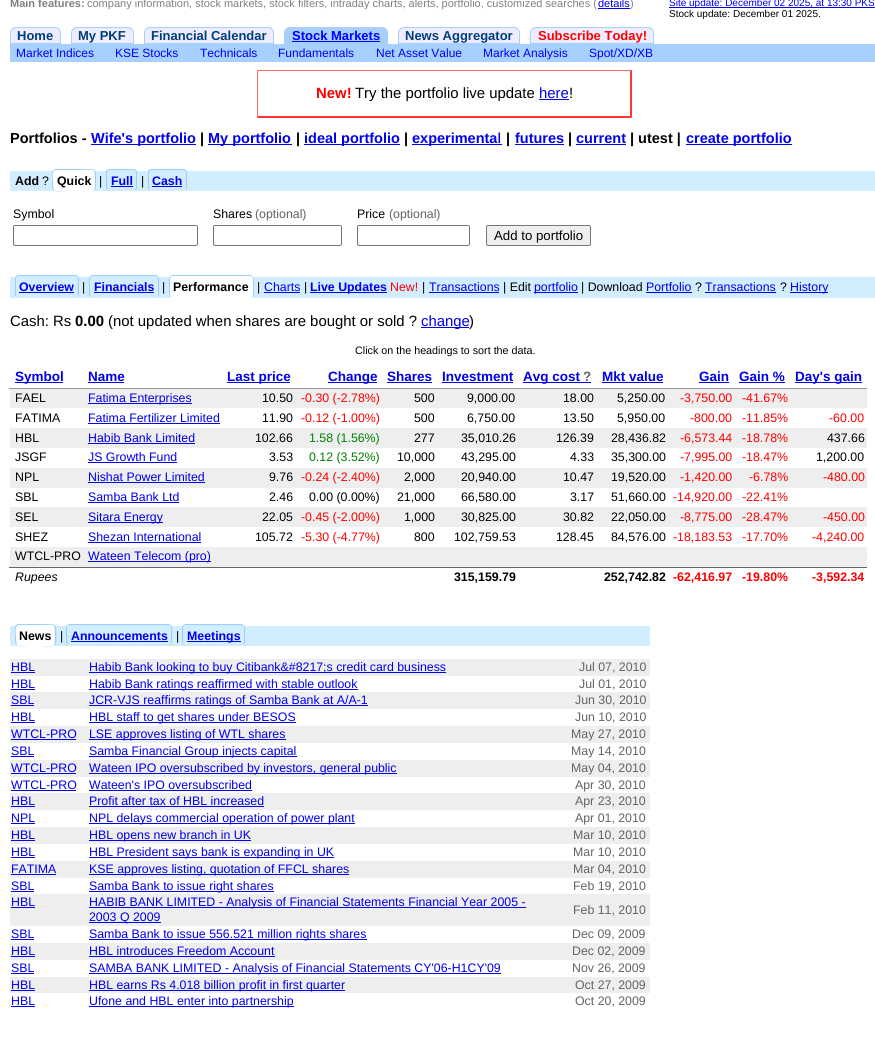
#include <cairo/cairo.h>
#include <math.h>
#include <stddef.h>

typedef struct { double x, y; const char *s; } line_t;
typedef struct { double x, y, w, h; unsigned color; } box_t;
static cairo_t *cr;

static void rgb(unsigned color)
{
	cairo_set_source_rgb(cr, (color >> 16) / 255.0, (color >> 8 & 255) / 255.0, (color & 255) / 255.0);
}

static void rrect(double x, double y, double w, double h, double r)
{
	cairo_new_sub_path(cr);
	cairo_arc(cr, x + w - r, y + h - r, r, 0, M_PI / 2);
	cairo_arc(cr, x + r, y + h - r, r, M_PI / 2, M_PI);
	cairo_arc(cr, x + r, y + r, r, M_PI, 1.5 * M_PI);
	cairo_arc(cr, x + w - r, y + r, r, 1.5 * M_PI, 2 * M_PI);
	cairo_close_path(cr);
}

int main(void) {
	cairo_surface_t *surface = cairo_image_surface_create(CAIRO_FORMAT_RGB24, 875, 1052);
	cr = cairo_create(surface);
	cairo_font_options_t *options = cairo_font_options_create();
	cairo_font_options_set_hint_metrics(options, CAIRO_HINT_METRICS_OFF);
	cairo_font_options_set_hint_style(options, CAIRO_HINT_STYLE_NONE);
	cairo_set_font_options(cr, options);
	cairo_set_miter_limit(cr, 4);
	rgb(0xffffff);
	cairo_paint(cr);
	rgb(0x0000ee);
	cairo_rectangle(cr, 598, 8, 32, 1);
	cairo_fill(cr);
	cairo_rectangle(cr, 669, 7, 206, 1);
	cairo_fill(cr);
	rgb(0xededff);
	cairo_new_path(cr);
	cairo_move_to(cr, 16, 27.5);
	cairo_line_to(cr, 55, 27.5);
	cairo_curve_to(cr, 58, 27.5, 60.5, 30, 60.5, 33);
	cairo_line_to(cr, 60.5, 43.5);
	cairo_line_to(cr, 10.5, 43.5);
	cairo_line_to(cr, 10.5, 33);
	cairo_curve_to(cr, 10.5, 30, 13, 27.5, 16, 27.5);
	cairo_close_path(cr);
	cairo_fill_preserve(cr);
	rgb(0xa7d0ff);
	cairo_set_line_width(cr, 1);
	cairo_stroke(cr);
	rgb(0xededff);
	cairo_new_path(cr);
	cairo_move_to(cr, 77, 27.5);
	cairo_line_to(cr, 128, 27.5);
	cairo_curve_to(cr, 131, 27.5, 133.5, 30, 133.5, 33);
	cairo_line_to(cr, 133.5, 43.5);
	cairo_line_to(cr, 71.5, 43.5);
	cairo_line_to(cr, 71.5, 33);
	cairo_curve_to(cr, 71.5, 30, 74, 27.5, 77, 27.5);
	cairo_close_path(cr);
	cairo_fill_preserve(cr);
	rgb(0xa7d0ff);
	cairo_stroke(cr);
	rgb(0xededff);
	cairo_new_path(cr);
	cairo_move_to(cr, 150, 27.5);
	cairo_line_to(cr, 268, 27.5);
	cairo_curve_to(cr, 271, 27.5, 273.5, 30, 273.5, 33);
	cairo_line_to(cr, 273.5, 43.5);
	cairo_line_to(cr, 144.5, 43.5);
	cairo_line_to(cr, 144.5, 33);
	cairo_curve_to(cr, 144.5, 30, 147, 27.5, 150, 27.5);
	cairo_close_path(cr);
	cairo_fill_preserve(cr);
	rgb(0xa7d0ff);
	cairo_stroke(cr);
	cairo_new_path(cr);
	cairo_move_to(cr, 290, 27.5);
	cairo_line_to(cr, 382, 27.5);
	cairo_curve_to(cr, 385, 27.5, 387.5, 30, 387.5, 33);
	cairo_line_to(cr, 387.5, 43.5);
	cairo_line_to(cr, 284.5, 43.5);
	cairo_line_to(cr, 284.5, 33);
	cairo_curve_to(cr, 284.5, 30, 287, 27.5, 290, 27.5);
	cairo_close_path(cr);
	cairo_fill_preserve(cr);
	cairo_stroke(cr);
	rgb(0x0000ff);
	cairo_rectangle(cr, 292, 41, 88, 1);
	cairo_fill(cr);
	rgb(0xededff);
	cairo_new_path(cr);
	cairo_move_to(cr, 404, 27.5);
	cairo_line_to(cr, 514, 27.5);
	cairo_curve_to(cr, 517, 27.5, 519.5, 30, 519.5, 33);
	cairo_line_to(cr, 519.5, 43.5);
	cairo_line_to(cr, 398.5, 43.5);
	cairo_line_to(cr, 398.5, 33);
	cairo_curve_to(cr, 398.5, 30, 401, 27.5, 404, 27.5);
	cairo_close_path(cr);
	cairo_fill_preserve(cr);
	rgb(0xa7d0ff);
	cairo_stroke(cr);
	rgb(0xededff);
	cairo_new_path(cr);
	cairo_move_to(cr, 536, 27.5);
	cairo_line_to(cr, 648, 27.5);
	cairo_curve_to(cr, 651, 27.5, 653.5, 30, 653.5, 33);
	cairo_line_to(cr, 653.5, 43.5);
	cairo_line_to(cr, 530.5, 43.5);
	cairo_line_to(cr, 530.5, 33);
	cairo_curve_to(cr, 530.5, 30, 533, 27.5, 536, 27.5);
	cairo_close_path(cr);
	cairo_fill_preserve(cr);
	rgb(0xa7d0ff);
	cairo_stroke(cr);
	cairo_rectangle(cr, 10, 44, 865, 18);
	cairo_fill(cr);
	rgb(0xff6666);
	cairo_new_path(cr);
	cairo_move_to(cr, 257, 70);
	cairo_line_to(cr, 632, 70);
	cairo_line_to(cr, 630, 71);
	cairo_line_to(cr, 258, 71);
	cairo_close_path(cr);
	cairo_fill(cr);
	rgb(0xff3333);
	cairo_new_path(cr);
	cairo_move_to(cr, 632, 70);
	cairo_line_to(cr, 632, 118);
	cairo_line_to(cr, 630, 116);
	cairo_line_to(cr, 630, 71);
	cairo_close_path(cr);
	cairo_fill(cr);
	cairo_new_path(cr);
	cairo_move_to(cr, 632, 118);
	cairo_line_to(cr, 257, 118);
	cairo_line_to(cr, 258, 116);
	cairo_line_to(cr, 630, 116);
	cairo_close_path(cr);
	cairo_fill(cr);
	rgb(0xff6666);
	cairo_new_path(cr);
	cairo_move_to(cr, 257, 118);
	cairo_line_to(cr, 257, 70);
	cairo_line_to(cr, 258, 71);
	cairo_line_to(cr, 258, 116);
	cairo_close_path(cr);
	cairo_fill(cr);
	{
		static const box_t items[] = {
			{539, 99, 30, 1, 0x0000ee},
			{91, 144, 105, 1, 0x0000ee},
			{208, 144, 84, 1, 0x0000ee},
			{304, 144, 96, 1, 0x0000ee},
			{412, 144, 90, 1, 0x0000ee},
			{515, 144, 49, 1, 0x0000ee},
			{576, 144, 50, 1, 0x0000ee},
			{686, 144, 106, 1, 0x0000ee},
			{10, 171, 865, 20, 0xd2edff},
		};
		for (size_t i = 0; i < sizeof items / sizeof *items; i++) {
			rgb(items[i].color);
			cairo_rectangle(cr, items[i].x, items[i].y, items[i].w, items[i].h);
			cairo_fill(cr);
		}
	}
	rgb(0xffffff);
	rrect(52, 169, 44, 22, 4);
	cairo_fill(cr);
	rgb(0x97d0ff);
	cairo_set_fill_rule(cr, CAIRO_FILL_RULE_EVEN_ODD);
	cairo_new_path(cr);
	cairo_move_to(cr, 56, 169);
	cairo_line_to(cr, 92, 169);
	cairo_curve_to(cr, 94, 169, 96, 171, 96, 173);
	cairo_line_to(cr, 96, 187);
	cairo_curve_to(cr, 96, 189, 94, 191, 92, 191);
	cairo_line_to(cr, 56, 191);
	cairo_curve_to(cr, 54, 191, 52, 189, 52, 187);
	cairo_line_to(cr, 52, 173);
	cairo_curve_to(cr, 52, 171, 54, 169, 56, 169);
	cairo_close_path(cr);
	cairo_move_to(cr, 56, 170);
	cairo_line_to(cr, 80, 170);
	cairo_curve_to(cr, 95, 170, 95, 167, 95, 180);
	cairo_curve_to(cr, 95, 182, 96, 191, 92, 191);
	cairo_line_to(cr, 68, 191);
	cairo_curve_to(cr, 55, 191, 53, 194, 53, 182);
	cairo_curve_to(cr, 53, 180, 51, 170, 56, 170);
	cairo_close_path(cr);
	cairo_fill(cr);
	rgb(0xd2edff);
	rrect(106, 169, 31, 22, 4);
	cairo_fill(cr);
	rgb(0x97d0ff);
	cairo_new_path(cr);
	cairo_move_to(cr, 109.5, 169);
	cairo_line_to(cr, 133.5, 169);
	cairo_curve_to(cr, 135.5, 169, 137, 170.5, 137, 172.5);
	cairo_line_to(cr, 137, 187.5);
	cairo_curve_to(cr, 137, 189.5, 135.5, 191, 133.5, 191);
	cairo_line_to(cr, 109.5, 191);
	cairo_curve_to(cr, 107.5, 191, 106, 189.5, 106, 187.5);
	cairo_line_to(cr, 106, 172.5);
	cairo_curve_to(cr, 106, 170.5, 107.5, 169, 109.5, 169);
	cairo_close_path(cr);
	cairo_move_to(cr, 109.5, 170);
	cairo_line_to(cr, 133.5, 170);
	cairo_curve_to(cr, 135, 170, 136, 171, 136, 172.5);
	cairo_line_to(cr, 136, 187.5);
	cairo_curve_to(cr, 136, 189.5, 135, 191, 133.5, 191);
	cairo_line_to(cr, 109.5, 191);
	cairo_curve_to(cr, 108, 191, 107, 189.5, 107, 187.5);
	cairo_line_to(cr, 107, 172.5);
	cairo_curve_to(cr, 107, 171, 108, 170, 109.5, 170);
	cairo_close_path(cr);
	cairo_fill(cr);
	rgb(0x0000ee);
	cairo_rectangle(cr, 111, 186, 22, 1);
	cairo_fill(cr);
	rgb(0xd2edff);
	rrect(148, 169, 39, 22, 4);
	cairo_fill(cr);
	rgb(0x97d0ff);
	cairo_new_path(cr);
	cairo_move_to(cr, 151.5, 169);
	cairo_line_to(cr, 183.5, 169);
	cairo_curve_to(cr, 185.5, 169, 187, 170.5, 187, 172.5);
	cairo_line_to(cr, 187, 187.5);
	cairo_curve_to(cr, 187, 189.5, 185.5, 191, 183.5, 191);
	cairo_line_to(cr, 151.5, 191);
	cairo_curve_to(cr, 149.5, 191, 148, 189.5, 148, 187.5);
	cairo_line_to(cr, 148, 172.5);
	cairo_curve_to(cr, 148, 170.5, 149.5, 169, 151.5, 169);
	cairo_close_path(cr);
	cairo_move_to(cr, 151.5, 170);
	cairo_line_to(cr, 183.5, 170);
	cairo_curve_to(cr, 185, 170, 186, 171, 186, 172.5);
	cairo_line_to(cr, 186, 187.5);
	cairo_curve_to(cr, 186, 189.5, 185, 191, 183.5, 191);
	cairo_line_to(cr, 151.5, 191);
	cairo_curve_to(cr, 150, 191, 149, 189.5, 149, 187.5);
	cairo_line_to(cr, 149, 172.5);
	cairo_curve_to(cr, 149, 171, 150, 170, 151.5, 170);
	cairo_close_path(cr);
	cairo_fill(cr);
	rgb(0x0000ee);
	cairo_rectangle(cr, 152, 186, 30, 1);
	cairo_fill(cr);
	rrect(13.5, 225.5, 184, 20, 1.5);
	rgb(0x767676);
	cairo_stroke(cr);
	rrect(213.5, 225.5, 128, 20, 1.5);
	cairo_stroke(cr);
	rrect(357.5, 225.5, 112, 20, 1.5);
	cairo_stroke(cr);
	rgb(0xefefef);
	rrect(486.5, 225.5, 104, 20, 1.5);
	cairo_fill_preserve(cr);
	rgb(0x767676);
	cairo_stroke(cr);
	rgb(0xd2edff);
	cairo_rectangle(cr, 10, 277, 865, 21);
	cairo_fill(cr);
	rrect(15, 275, 64, 23, 4);
	cairo_fill(cr);
	rgb(0x97d0ff);
	cairo_new_path(cr);
	cairo_move_to(cr, 19, 275);
	cairo_line_to(cr, 75, 275);
	cairo_curve_to(cr, 77, 275, 79, 277, 79, 279);
	cairo_line_to(cr, 79, 294);
	cairo_curve_to(cr, 79, 296, 77, 298, 75, 298);
	cairo_line_to(cr, 19, 298);
	cairo_curve_to(cr, 17, 298, 15, 296, 15, 294);
	cairo_line_to(cr, 15, 279);
	cairo_curve_to(cr, 15, 277, 17, 275, 19, 275);
	cairo_close_path(cr);
	cairo_move_to(cr, 19, 276);
	cairo_line_to(cr, 75, 276);
	cairo_curve_to(cr, 77, 276, 78, 277, 78, 279);
	cairo_line_to(cr, 78, 294);
	cairo_curve_to(cr, 78, 296, 77, 298, 75, 298);
	cairo_line_to(cr, 19, 298);
	cairo_curve_to(cr, 17, 298, 16, 296, 16, 294);
	cairo_line_to(cr, 16, 279);
	cairo_curve_to(cr, 16, 277, 17, 276, 19, 276);
	cairo_close_path(cr);
	cairo_fill(cr);
	rgb(0x0000ee);
	cairo_rectangle(cr, 19, 292, 55, 1);
	cairo_fill(cr);
	rgb(0xd2edff);
	rrect(89, 275, 70, 23, 4);
	cairo_fill(cr);
	rgb(0x97d0ff);
	cairo_new_path(cr);
	cairo_move_to(cr, 93, 275);
	cairo_line_to(cr, 155, 275);
	cairo_curve_to(cr, 157, 275, 159, 277, 159, 279);
	cairo_line_to(cr, 159, 294);
	cairo_curve_to(cr, 159, 296, 157, 298, 155, 298);
	cairo_line_to(cr, 93, 298);
	cairo_curve_to(cr, 91, 298, 89, 296, 89, 294);
	cairo_line_to(cr, 89, 279);
	cairo_curve_to(cr, 89, 277, 91, 275, 93, 275);
	cairo_close_path(cr);
	cairo_move_to(cr, 93, 276);
	cairo_line_to(cr, 155, 276);
	cairo_curve_to(cr, 157, 276, 158, 277, 158, 279);
	cairo_line_to(cr, 158, 294);
	cairo_curve_to(cr, 158, 296, 157, 298, 155, 298);
	cairo_line_to(cr, 93, 298);
	cairo_curve_to(cr, 91, 298, 90, 296, 90, 294);
	cairo_line_to(cr, 90, 279);
	cairo_curve_to(cr, 90, 277, 91, 276, 93, 276);
	cairo_close_path(cr);
	cairo_fill(cr);
	rgb(0x0000ee);
	cairo_rectangle(cr, 94, 292, 60, 1);
	cairo_fill(cr);
	rgb(0xffffff);
	rrect(169, 275, 85, 23, 4);
	cairo_fill(cr);
	rgb(0x97d0ff);
	cairo_new_path(cr);
	cairo_move_to(cr, 173, 275);
	cairo_line_to(cr, 250, 275);
	cairo_curve_to(cr, 252, 275, 254, 277, 254, 279);
	cairo_line_to(cr, 254, 294);
	cairo_curve_to(cr, 254, 296, 252, 298, 250, 298);
	cairo_line_to(cr, 173, 298);
	cairo_curve_to(cr, 171, 298, 169, 296, 169, 294);
	cairo_line_to(cr, 169, 279);
	cairo_curve_to(cr, 169, 277, 171, 275, 173, 275);
	cairo_close_path(cr);
	cairo_move_to(cr, 173, 276);
	cairo_line_to(cr, 250, 276);
	cairo_curve_to(cr, 252, 276, 253, 277, 253, 279);
	cairo_line_to(cr, 253, 294);
	cairo_curve_to(cr, 253, 296, 252, 298, 250, 298);
	cairo_line_to(cr, 173, 298);
	cairo_curve_to(cr, 171, 298, 170, 296, 170, 294);
	cairo_line_to(cr, 170, 279);
	cairo_curve_to(cr, 170, 277, 171, 276, 173, 276);
	cairo_close_path(cr);
	cairo_fill(cr);
	{
		static const box_t items[] = {
			{264, 292, 36, 1, 0x0000ee},
			{310, 292, 77, 1, 0x0000ee},
			{429, 292, 70, 1, 0x0000ee},
			{534, 292, 44, 1, 0x0000ee},
			{646, 292, 46, 1, 0x0000ee},
			{705, 292, 71, 1, 0x0000ee},
			{790, 292, 38, 1, 0x0000ee},
			{421, 327, 48, 1, 0x0000ee},
			{9, 388, 858, 1, 0x999999},
			{15, 382, 48, 1, 0x0000ee},
			{88, 382, 36, 1, 0x0000ee},
			{227, 382, 63, 1, 0x0000ee},
			{328, 382, 49, 1, 0x0000ee},
			{387, 382, 45, 1, 0x0000ee},
			{442, 382, 71, 1, 0x0000ee},
			{523, 382, 68, 1, 0x0000ee},
			{602, 382, 61, 1, 0x0000ee},
			{699, 382, 30, 1, 0x0000ee},
			{739, 382, 46, 1, 0x0000ee},
			{795, 382, 67, 1, 0x0000ee},
			{10, 389, 857, 19, 0xeeeeee},
			{88, 403, 104, 1, 0x0000ee},
			{88, 423, 132, 1, 0x0000ee},
			{10, 428, 857, 20, 0xeeeeee},
			{88, 443, 107, 1, 0x0000ee},
			{88, 462, 89, 1, 0x0000ee},
			{10, 468, 857, 20, 0xeeeeee},
			{88, 482, 117, 1, 0x0000ee},
			{88, 502, 91, 1, 0x0000ee},
			{10, 507, 857, 20, 0xeeeeee},
			{88, 522, 75, 1, 0x0000ee},
			{88, 542, 113, 1, 0x0000ee},
			{10, 547, 857, 20, 0xeeeeee},
			{88, 561, 123, 1, 0x0000ee},
			{9, 567, 858, 1, 0x666666},
			{10, 626, 640, 20, 0xd2edff},
		};
		for (size_t i = 0; i < sizeof items / sizeof *items; i++) {
			rgb(items[i].color);
			cairo_rectangle(cr, items[i].x, items[i].y, items[i].w, items[i].h);
			cairo_fill(cr);
		}
	}
	rgb(0xffffff);
	rrect(15, 624, 41, 22, 4);
	cairo_fill(cr);
	rgb(0x97d0ff);
	cairo_new_path(cr);
	cairo_move_to(cr, 19, 624);
	cairo_line_to(cr, 47, 624);
	cairo_curve_to(cr, 50, 624, 56, 623, 56, 628);
	cairo_curve_to(cr, 57, 650, 58, 646, 36, 646);
	cairo_line_to(cr, 24, 646);
	cairo_curve_to(cr, 14, 646, 15, 645, 15, 635);
	cairo_curve_to(cr, 15, 632, 13, 624, 19, 624);
	cairo_close_path(cr);
	cairo_move_to(cr, 19, 625);
	cairo_line_to(cr, 41, 625);
	cairo_curve_to(cr, 55, 625, 55, 622, 55, 635);
	cairo_curve_to(cr, 55, 637, 56, 646, 52, 646);
	cairo_line_to(cr, 30, 646);
	cairo_curve_to(cr, 18, 646, 16, 649, 16, 637);
	cairo_curve_to(cr, 16, 635, 14, 625, 19, 625);
	cairo_close_path(cr);
	cairo_fill(cr);
	rgb(0xd2edff);
	rrect(66, 624, 106, 22, 4);
	cairo_fill(cr);
	rgb(0x97d0ff);
	cairo_new_path(cr);
	cairo_move_to(cr, 70, 624);
	cairo_line_to(cr, 168, 624);
	cairo_curve_to(cr, 170, 624, 172, 626, 172, 628);
	cairo_line_to(cr, 172, 642);
	cairo_curve_to(cr, 172, 644, 170, 646, 168, 646);
	cairo_line_to(cr, 70, 646);
	cairo_curve_to(cr, 68, 646, 66, 644, 66, 642);
	cairo_line_to(cr, 66, 628);
	cairo_curve_to(cr, 66, 626, 68, 624, 70, 624);
	cairo_close_path(cr);
	cairo_move_to(cr, 70, 625);
	cairo_line_to(cr, 168, 625);
	cairo_curve_to(cr, 170, 625, 171, 626, 171, 628);
	cairo_line_to(cr, 171, 642);
	cairo_curve_to(cr, 171, 644, 170, 646, 168, 646);
	cairo_line_to(cr, 70, 646);
	cairo_curve_to(cr, 68, 646, 67, 644, 67, 642);
	cairo_line_to(cr, 67, 628);
	cairo_curve_to(cr, 67, 626, 68, 625, 70, 625);
	cairo_close_path(cr);
	cairo_fill(cr);
	rgb(0x0000ee);
	cairo_rectangle(cr, 71, 641, 97, 1);
	cairo_fill(cr);
	rgb(0xd2edff);
	rrect(182, 624, 63, 22, 4);
	cairo_fill(cr);
	rgb(0x97d0ff);
	cairo_new_path(cr);
	cairo_move_to(cr, 186, 624);
	cairo_line_to(cr, 241, 624);
	cairo_curve_to(cr, 243, 624, 245, 626, 245, 628);
	cairo_line_to(cr, 245, 642);
	cairo_curve_to(cr, 245, 644, 243, 646, 241, 646);
	cairo_line_to(cr, 186, 646);
	cairo_curve_to(cr, 184, 646, 182, 644, 182, 642);
	cairo_line_to(cr, 182, 628);
	cairo_curve_to(cr, 182, 626, 184, 624, 186, 624);
	cairo_close_path(cr);
	cairo_move_to(cr, 186, 625);
	cairo_line_to(cr, 241, 625);
	cairo_curve_to(cr, 243, 625, 244, 626, 244, 628);
	cairo_line_to(cr, 244, 642);
	cairo_curve_to(cr, 244, 644, 243, 646, 241, 646);
	cairo_line_to(cr, 186, 646);
	cairo_curve_to(cr, 184, 646, 183, 644, 183, 642);
	cairo_line_to(cr, 183, 628);
	cairo_curve_to(cr, 183, 626, 184, 625, 186, 625);
	cairo_close_path(cr);
	cairo_fill(cr);
	{
		static const box_t items[] = {
			{187, 641, 54, 1, 0x0000ee},
			{10, 659, 640, 17, 0xeeeeee},
			{11, 672, 24, 1, 0x0000ee},
			{89, 672, 357, 1, 0x0000ee},
			{11, 689, 24, 1, 0x0000ee},
			{89, 689, 269, 1, 0x0000ee},
			{10, 692, 640, 17, 0xeeeeee},
			{11, 705, 23, 1, 0x0000ee},
			{89, 705, 279, 1, 0x0000ee},
			{11, 722, 24, 1, 0x0000ee},
			{89, 722, 207, 1, 0x0000ee},
			{10, 726, 640, 17, 0xeeeeee},
			{11, 739, 65, 1, 0x0000ee},
			{89, 739, 197, 1, 0x0000ee},
			{11, 756, 23, 1, 0x0000ee},
			{89, 756, 208, 1, 0x0000ee},
			{10, 760, 640, 17, 0xeeeeee},
			{11, 773, 65, 1, 0x0000ee},
			{89, 773, 308, 1, 0x0000ee},
			{11, 790, 65, 1, 0x0000ee},
			{89, 790, 163, 1, 0x0000ee},
			{10, 793, 640, 17, 0xeeeeee},
			{11, 806, 24, 1, 0x0000ee},
			{89, 806, 175, 1, 0x0000ee},
			{11, 823, 24, 1, 0x0000ee},
			{89, 823, 266, 1, 0x0000ee},
			{10, 827, 640, 17, 0xeeeeee},
			{11, 840, 24, 1, 0x0000ee},
			{89, 840, 162, 1, 0x0000ee},
			{11, 857, 24, 1, 0x0000ee},
			{89, 857, 245, 1, 0x0000ee},
			{10, 861, 640, 17, 0xeeeeee},
			{11, 874, 45, 1, 0x0000ee},
			{89, 874, 260, 1, 0x0000ee},
			{11, 891, 23, 1, 0x0000ee},
			{89, 891, 185, 1, 0x0000ee},
			{10, 894, 640, 32, 0xeeeeee},
			{11, 907, 24, 1, 0x0000ee},
			{89, 907, 437, 1, 0x0000ee},
			{89, 922, 72, 1, 0x0000ee},
			{11, 939, 23, 1, 0x0000ee},
			{89, 939, 278, 1, 0x0000ee},
			{10, 943, 640, 17, 0xeeeeee},
			{11, 956, 24, 1, 0x0000ee},
			{89, 956, 186, 1, 0x0000ee},
			{11, 973, 23, 1, 0x0000ee},
			{89, 973, 412, 1, 0x0000ee},
			{10, 977, 640, 16, 0xeeeeee},
			{11, 990, 24, 1, 0x0000ee},
			{89, 990, 256, 1, 0x0000ee},
			{11, 1006, 24, 1, 0x0000ee},
			{89, 1006, 205, 1, 0x0000ee},
		};
		for (size_t i = 0; i < sizeof items / sizeof *items; i++) {
			rgb(items[i].color);
			cairo_rectangle(cr, items[i].x, items[i].y, items[i].w, items[i].h);
			cairo_fill(cr);
		}
	}
	cairo_select_font_face(cr, "Liberation Sans", CAIRO_FONT_SLANT_NORMAL, CAIRO_FONT_WEIGHT_BOLD);
	cairo_set_font_size(cr, 11);
	rgb(0x808080);
	cairo_move_to(cr, 10, 7);
	cairo_show_text(cr, "Main features:");
	cairo_select_font_face(cr, "Liberation Sans", CAIRO_FONT_SLANT_NORMAL, CAIRO_FONT_WEIGHT_NORMAL);
	cairo_move_to(cr, 87, 7);
	cairo_show_text(cr, "company information, stock markets, stock filters, intraday charts, alerts, portfolio, customized searches (");
	rgb(0x0000ee);
	cairo_move_to(cr, 598, 7);
	cairo_show_text(cr, "details");
	rgb(0x808080);
	cairo_move_to(cr, 630, 7);
	cairo_show_text(cr, ")");
	cairo_set_font_size(cr, 10);
	rgb(0x0000ee);
	cairo_move_to(cr, 669, 6);
	cairo_show_text(cr, "Site update: December 02 2025, at 13:30 PKS");
	rgb(0x000000);
	cairo_move_to(cr, 669, 17);
	cairo_show_text(cr, "Stock update: December 01 2025.");
	cairo_select_font_face(cr, "Liberation Sans", CAIRO_FONT_SLANT_NORMAL, CAIRO_FONT_WEIGHT_BOLD);
	cairo_set_font_size(cr, 13);
	rgb(0x003d7b);
	{
		static const line_t items[] = {
			{17, 40, "Home"},
			{78, 40, "My PKF"},
			{151, 40, "Financial Calendar"},
		};
		for (size_t i = 0; i < sizeof items / sizeof *items; i++) {
			cairo_move_to(cr, items[i].x, items[i].y);
			cairo_show_text(cr, items[i].s);
		}
	}
	rgb(0x0000ff);
	cairo_move_to(cr, 292, 40);
	cairo_show_text(cr, "Stock Markets");
	rgb(0x003d7b);
	cairo_move_to(cr, 405, 40);
	cairo_show_text(cr, "News Aggregator");
	rgb(0xff0000);
	cairo_move_to(cr, 538, 40);
	cairo_show_text(cr, "Subscribe Today!");
	cairo_select_font_face(cr, "Liberation Sans", CAIRO_FONT_SLANT_NORMAL, CAIRO_FONT_WEIGHT_NORMAL);
	cairo_set_font_size(cr, 12);
	rgb(0x0000ff);
	{
		static const line_t items[] = {
			{16, 57, "Market Indices"},
			{115, 57, "KSE Stocks"},
			{200, 57, "Technicals"},
			{278, 57, "Fundamentals"},
			{376, 57, "Net Asset Value"},
			{483, 57, "Market Analysis"},
			{589, 57, "Spot/XD/XB"},
		};
		for (size_t i = 0; i < sizeof items / sizeof *items; i++) {
			cairo_move_to(cr, items[i].x, items[i].y);
			cairo_show_text(cr, items[i].s);
		}
	}
	cairo_select_font_face(cr, "Liberation Sans", CAIRO_FONT_SLANT_NORMAL, CAIRO_FONT_WEIGHT_BOLD);
	cairo_set_font_size(cr, 14.9);
	rgb(0xff0000);
	cairo_move_to(cr, 316, 98);
	cairo_show_text(cr, "New!");
	cairo_select_font_face(cr, "Liberation Sans", CAIRO_FONT_SLANT_NORMAL, CAIRO_FONT_WEIGHT_NORMAL);
	rgb(0x000000);
	cairo_move_to(cr, 355, 98);
	cairo_show_text(cr, "Try the portfolio live update");
	rgb(0x0000ee);
	cairo_move_to(cr, 539, 98);
	cairo_show_text(cr, "here");
	rgb(0x000000);
	cairo_move_to(cr, 569, 98);
	cairo_show_text(cr, "!");
	cairo_select_font_face(cr, "Liberation Sans", CAIRO_FONT_SLANT_NORMAL, CAIRO_FONT_WEIGHT_BOLD);
	cairo_set_font_size(cr, 14.5);
	cairo_move_to(cr, 10, 143);
	cairo_show_text(cr, "Portfolios -");
	rgb(0x0000ee);
	cairo_move_to(cr, 91, 143);
	cairo_show_text(cr, "Wife's portfolio");
	rgb(0x000000);
	cairo_move_to(cr, 200, 143);
	cairo_show_text(cr, "|");
	rgb(0x0000ee);
	cairo_move_to(cr, 208, 143);
	cairo_show_text(cr, "My portfolio");
	rgb(0x000000);
	cairo_move_to(cr, 296, 143);
	cairo_show_text(cr, "|");
	rgb(0x0000ee);
	cairo_move_to(cr, 304, 143);
	cairo_show_text(cr, "ideal portfolio");
	rgb(0x000000);
	cairo_move_to(cr, 404, 143);
	cairo_show_text(cr, "|");
	rgb(0x0000ee);
	cairo_move_to(cr, 412, 143);
	cairo_show_text(cr, "experimental");
	rgb(0x000000);
	cairo_move_to(cr, 506, 143);
	cairo_show_text(cr, "|");
	rgb(0x0000ee);
	cairo_move_to(cr, 515, 143);
	cairo_show_text(cr, "futures");
	rgb(0x000000);
	cairo_move_to(cr, 568, 143);
	cairo_show_text(cr, "|");
	rgb(0x0000ee);
	cairo_move_to(cr, 576, 143);
	cairo_show_text(cr, "current");
	rgb(0x000000);
	cairo_move_to(cr, 630, 143);
	cairo_show_text(cr, "| utest |");
	rgb(0x0000ee);
	cairo_move_to(cr, 686, 143);
	cairo_show_text(cr, "create portfolio");
	cairo_set_font_size(cr, 12.35);
	rgb(0x000000);
	cairo_move_to(cr, 15, 185);
	cairo_show_text(cr, "Add");
	cairo_select_font_face(cr, "Liberation Sans", CAIRO_FONT_SLANT_NORMAL, CAIRO_FONT_WEIGHT_NORMAL);
	cairo_move_to(cr, 42, 185);
	cairo_show_text(cr, "?");
	cairo_select_font_face(cr, "Liberation Sans", CAIRO_FONT_SLANT_NORMAL, CAIRO_FONT_WEIGHT_BOLD);
	cairo_move_to(cr, 57, 185);
	cairo_show_text(cr, "Quick");
	cairo_select_font_face(cr, "Liberation Sans", CAIRO_FONT_SLANT_NORMAL, CAIRO_FONT_WEIGHT_NORMAL);
	cairo_move_to(cr, 99, 185);
	cairo_show_text(cr, "|");
	cairo_select_font_face(cr, "Liberation Sans", CAIRO_FONT_SLANT_NORMAL, CAIRO_FONT_WEIGHT_BOLD);
	rgb(0x0000ee);
	cairo_move_to(cr, 111, 185);
	cairo_show_text(cr, "Full");
	cairo_select_font_face(cr, "Liberation Sans", CAIRO_FONT_SLANT_NORMAL, CAIRO_FONT_WEIGHT_NORMAL);
	rgb(0x000000);
	cairo_move_to(cr, 141, 185);
	cairo_show_text(cr, "|");
	cairo_select_font_face(cr, "Liberation Sans", CAIRO_FONT_SLANT_NORMAL, CAIRO_FONT_WEIGHT_BOLD);
	rgb(0x0000ee);
	cairo_move_to(cr, 152, 185);
	cairo_show_text(cr, "Cash");
	cairo_select_font_face(cr, "Liberation Sans", CAIRO_FONT_SLANT_NORMAL, CAIRO_FONT_WEIGHT_NORMAL);
	rgb(0x000000);
	cairo_move_to(cr, 13, 218);
	cairo_show_text(cr, "Symbol");
	cairo_move_to(cr, 213, 218);
	cairo_show_text(cr, "Shares");
	rgb(0x636363);
	cairo_move_to(cr, 255, 218);
	cairo_show_text(cr, "(optional)");
	rgb(0x000000);
	cairo_move_to(cr, 357, 218);
	cairo_show_text(cr, "Price");
	rgb(0x636363);
	cairo_move_to(cr, 389, 218);
	cairo_show_text(cr, "(optional)");
	cairo_set_font_size(cr, 13.25);
	rgb(0x000000);
	cairo_move_to(cr, 494, 240);
	cairo_show_text(cr, "Add to portfolio");
	cairo_select_font_face(cr, "Liberation Sans", CAIRO_FONT_SLANT_NORMAL, CAIRO_FONT_WEIGHT_BOLD);
	cairo_set_font_size(cr, 12.35);
	rgb(0x0000ee);
	cairo_move_to(cr, 19, 291);
	cairo_show_text(cr, "Overview");
	cairo_select_font_face(cr, "Liberation Sans", CAIRO_FONT_SLANT_NORMAL, CAIRO_FONT_WEIGHT_NORMAL);
	rgb(0x000000);
	cairo_move_to(cr, 82, 291);
	cairo_show_text(cr, "|");
	cairo_select_font_face(cr, "Liberation Sans", CAIRO_FONT_SLANT_NORMAL, CAIRO_FONT_WEIGHT_BOLD);
	rgb(0x0000ee);
	cairo_move_to(cr, 94, 291);
	cairo_show_text(cr, "Financials");
	cairo_select_font_face(cr, "Liberation Sans", CAIRO_FONT_SLANT_NORMAL, CAIRO_FONT_WEIGHT_NORMAL);
	rgb(0x000000);
	cairo_move_to(cr, 162, 291);
	cairo_show_text(cr, "|");
	cairo_select_font_face(cr, "Liberation Sans", CAIRO_FONT_SLANT_NORMAL, CAIRO_FONT_WEIGHT_BOLD);
	cairo_move_to(cr, 173, 291);
	cairo_show_text(cr, "Performance");
	cairo_select_font_face(cr, "Liberation Sans", CAIRO_FONT_SLANT_NORMAL, CAIRO_FONT_WEIGHT_NORMAL);
	cairo_move_to(cr, 257, 291);
	cairo_show_text(cr, "|");
	rgb(0x0000ee);
	cairo_move_to(cr, 264, 291);
	cairo_show_text(cr, "Charts");
	rgb(0x000000);
	cairo_move_to(cr, 304, 291);
	cairo_show_text(cr, "|");
	cairo_select_font_face(cr, "Liberation Sans", CAIRO_FONT_SLANT_NORMAL, CAIRO_FONT_WEIGHT_BOLD);
	rgb(0x0000ee);
	cairo_move_to(cr, 310, 291);
	cairo_show_text(cr, "Live Updates");
	cairo_select_font_face(cr, "Liberation Sans", CAIRO_FONT_SLANT_NORMAL, CAIRO_FONT_WEIGHT_NORMAL);
	rgb(0xff0000);
	cairo_move_to(cr, 390, 291);
	cairo_show_text(cr, "New!");
	rgb(0x000000);
	cairo_move_to(cr, 422, 291);
	cairo_show_text(cr, "|");
	rgb(0x0000ee);
	cairo_move_to(cr, 429, 291);
	cairo_show_text(cr, "Transactions");
	rgb(0x000000);
	cairo_move_to(cr, 503, 291);
	cairo_show_text(cr, "| Edit");
	rgb(0x0000ee);
	cairo_move_to(cr, 534, 291);
	cairo_show_text(cr, "portfolio");
	rgb(0x000000);
	cairo_move_to(cr, 581, 291);
	cairo_show_text(cr, "| Download");
	rgb(0x0000ee);
	cairo_move_to(cr, 646, 291);
	cairo_show_text(cr, "Portfolio");
	rgb(0x000000);
	cairo_move_to(cr, 695, 291);
	cairo_show_text(cr, "?");
	rgb(0x0000ee);
	cairo_move_to(cr, 705, 291);
	cairo_show_text(cr, "Transactions");
	rgb(0x000000);
	cairo_move_to(cr, 780, 291);
	cairo_show_text(cr, "?");
	rgb(0x0000ee);
	cairo_move_to(cr, 790, 291);
	cairo_show_text(cr, "History");
	cairo_set_font_size(cr, 14.9);
	rgb(0x000000);
	cairo_move_to(cr, 10, 326);
	cairo_show_text(cr, "Cash: Rs");
	cairo_select_font_face(cr, "Liberation Sans", CAIRO_FONT_SLANT_NORMAL, CAIRO_FONT_WEIGHT_BOLD);
	cairo_move_to(cr, 75, 326);
	cairo_show_text(cr, "0.00");
	cairo_select_font_face(cr, "Liberation Sans", CAIRO_FONT_SLANT_NORMAL, CAIRO_FONT_WEIGHT_NORMAL);
	cairo_move_to(cr, 108, 326);
	cairo_show_text(cr, "(not updated when shares are bought or sold ?");
	rgb(0x0000ee);
	cairo_move_to(cr, 421, 326);
	cairo_show_text(cr, "change");
	rgb(0x000000);
	cairo_move_to(cr, 469, 326);
	cairo_show_text(cr, ")");
	cairo_set_font_size(cr, 10.75);
	cairo_move_to(cr, 355, 354);
	cairo_show_text(cr, "Click on the headings to sort the data.");
	cairo_select_font_face(cr, "Liberation Sans", CAIRO_FONT_SLANT_NORMAL, CAIRO_FONT_WEIGHT_BOLD);
	cairo_set_font_size(cr, 13.5);
	rgb(0x0000ee);
	{
		static const line_t items[] = {
			{15, 381, "Symbol"},
			{88, 381, "Name"},
			{227, 381, "Last price"},
			{328, 381, "Change"},
			{387, 381, "Shares"},
			{442, 381, "Investment"},
			{523, 381, "Avg cost"},
		};
		for (size_t i = 0; i < sizeof items / sizeof *items; i++) {
			cairo_move_to(cr, items[i].x, items[i].y);
			cairo_show_text(cr, items[i].s);
		}
	}
	rgb(0x636363);
	cairo_move_to(cr, 583, 381);
	cairo_show_text(cr, "?");
	rgb(0x0000ee);
	{
		static const line_t items[] = {
			{602, 381, "Mkt value"},
			{699, 381, "Gain"},
			{739, 381, "Gain %"},
			{795, 381, "Day's gain"},
		};
		for (size_t i = 0; i < sizeof items / sizeof *items; i++) {
			cairo_move_to(cr, items[i].x, items[i].y);
			cairo_show_text(cr, items[i].s);
		}
	}
	cairo_select_font_face(cr, "Liberation Sans", CAIRO_FONT_SLANT_NORMAL, CAIRO_FONT_WEIGHT_NORMAL);
	cairo_set_font_size(cr, 12.35);
	rgb(0x000000);
	cairo_move_to(cr, 15, 402);
	cairo_show_text(cr, "FAEL");
	rgb(0x0000ee);
	cairo_move_to(cr, 88, 402);
	cairo_show_text(cr, "Fatima Enterprises");
	rgb(0x000000);
	cairo_move_to(cr, 262, 402);
	cairo_show_text(cr, "10.50");
	rgb(0xff0000);
	cairo_move_to(cr, 301, 402);
	cairo_show_text(cr, "-0.30 (-2.78%)");
	rgb(0x000000);
	{
		static const line_t items[] = {
			{414, 402, "500"},
			{467, 402, "9,000.00"},
			{563, 402, "18.00"},
			{617, 402, "5,250.00"},
		};
		for (size_t i = 0; i < sizeof items / sizeof *items; i++) {
			cairo_move_to(cr, items[i].x, items[i].y);
			cairo_show_text(cr, items[i].s);
		}
	}
	rgb(0xff0000);
	cairo_move_to(cr, 680, 402);
	cairo_show_text(cr, "-3,750.00");
	cairo_move_to(cr, 742, 402);
	cairo_show_text(cr, "-41.67%");
	rgb(0x000000);
	cairo_move_to(cr, 15, 422);
	cairo_show_text(cr, "FATIMA");
	rgb(0x0000ee);
	cairo_move_to(cr, 88, 422);
	cairo_show_text(cr, "Fatima Fertilizer Limited");
	rgb(0x000000);
	cairo_move_to(cr, 262, 422);
	cairo_show_text(cr, "11.90");
	rgb(0xff0000);
	cairo_move_to(cr, 301, 422);
	cairo_show_text(cr, "-0.12 (-1.00%)");
	rgb(0x000000);
	{
		static const line_t items[] = {
			{414, 422, "500"},
			{467, 422, "6,750.00"},
			{563, 422, "13.50"},
			{617, 422, "5,950.00"},
		};
		for (size_t i = 0; i < sizeof items / sizeof *items; i++) {
			cairo_move_to(cr, items[i].x, items[i].y);
			cairo_show_text(cr, items[i].s);
		}
	}
	rgb(0xff0000);
	{
		static const line_t items[] = {
			{690, 422, "-800.00"},
			{742, 422, "-11.85%"},
			{829, 422, "-60.00"},
		};
		for (size_t i = 0; i < sizeof items / sizeof *items; i++) {
			cairo_move_to(cr, items[i].x, items[i].y);
			cairo_show_text(cr, items[i].s);
		}
	}
	rgb(0x000000);
	cairo_move_to(cr, 15, 442);
	cairo_show_text(cr, "HBL");
	rgb(0x0000ee);
	cairo_move_to(cr, 88, 442);
	cairo_show_text(cr, "Habib Bank Limited");
	rgb(0x000000);
	cairo_move_to(cr, 255, 442);
	cairo_show_text(cr, "102.66");
	rgb(0x008000);
	cairo_move_to(cr, 309, 442);
	cairo_show_text(cr, "1.58 (1.56%)");
	rgb(0x000000);
	{
		static const line_t items[] = {
			{414, 442, "277"},
			{461, 442, "35,010.26"},
			{556, 442, "126.39"},
			{611, 442, "28,436.82"},
		};
		for (size_t i = 0; i < sizeof items / sizeof *items; i++) {
			cairo_move_to(cr, items[i].x, items[i].y);
			cairo_show_text(cr, items[i].s);
		}
	}
	rgb(0xff0000);
	cairo_move_to(cr, 680, 442);
	cairo_show_text(cr, "-6,573.44");
	cairo_move_to(cr, 742, 442);
	cairo_show_text(cr, "-18.78%");
	rgb(0x000000);
	cairo_move_to(cr, 827, 442);
	cairo_show_text(cr, "437.66");
	cairo_move_to(cr, 15, 461);
	cairo_show_text(cr, "JSGF");
	rgb(0x0000ee);
	cairo_move_to(cr, 88, 461);
	cairo_show_text(cr, "JS Growth Fund");
	rgb(0x000000);
	cairo_move_to(cr, 269, 461);
	cairo_show_text(cr, "3.53");
	rgb(0x008000);
	cairo_move_to(cr, 309, 461);
	cairo_show_text(cr, "0.12 (3.52%)");
	rgb(0x000000);
	{
		static const line_t items[] = {
			{397, 461, "10,000"},
			{461, 461, "43,295.00"},
			{570, 461, "4.33"},
			{611, 461, "35,300.00"},
		};
		for (size_t i = 0; i < sizeof items / sizeof *items; i++) {
			cairo_move_to(cr, items[i].x, items[i].y);
			cairo_show_text(cr, items[i].s);
		}
	}
	rgb(0xff0000);
	cairo_move_to(cr, 680, 461);
	cairo_show_text(cr, "-7,995.00");
	cairo_move_to(cr, 742, 461);
	cairo_show_text(cr, "-18.47%");
	rgb(0x000000);
	cairo_move_to(cr, 816, 461);
	cairo_show_text(cr, "1,200.00");
	cairo_move_to(cr, 15, 481);
	cairo_show_text(cr, "NPL");
	rgb(0x0000ee);
	cairo_move_to(cr, 88, 481);
	cairo_show_text(cr, "Nishat Power Limited");
	rgb(0x000000);
	cairo_move_to(cr, 269, 481);
	cairo_show_text(cr, "9.76");
	rgb(0xff0000);
	cairo_move_to(cr, 301, 481);
	cairo_show_text(cr, "-0.24 (-2.40%)");
	rgb(0x000000);
	{
		static const line_t items[] = {
			{404, 481, "2,000"},
			{461, 481, "20,940.00"},
			{563, 481, "10.47"},
			{611, 481, "19,520.00"},
		};
		for (size_t i = 0; i < sizeof items / sizeof *items; i++) {
			cairo_move_to(cr, items[i].x, items[i].y);
			cairo_show_text(cr, items[i].s);
		}
	}
	rgb(0xff0000);
	{
		static const line_t items[] = {
			{680, 481, "-1,420.00"},
			{749, 481, "-6.78%"},
			{823, 481, "-480.00"},
		};
		for (size_t i = 0; i < sizeof items / sizeof *items; i++) {
			cairo_move_to(cr, items[i].x, items[i].y);
			cairo_show_text(cr, items[i].s);
		}
	}
	rgb(0x000000);
	cairo_move_to(cr, 15, 501);
	cairo_show_text(cr, "SBL");
	rgb(0x0000ee);
	cairo_move_to(cr, 88, 501);
	cairo_show_text(cr, "Samba Bank Ltd");
	rgb(0x000000);
	{
		static const line_t items[] = {
			{269, 501, "2.46"},
			{309, 501, "0.00 (0.00%)"},
			{397, 501, "21,000"},
			{461, 501, "66,580.00"},
			{570, 501, "3.17"},
			{611, 501, "51,660.00"},
		};
		for (size_t i = 0; i < sizeof items / sizeof *items; i++) {
			cairo_move_to(cr, items[i].x, items[i].y);
			cairo_show_text(cr, items[i].s);
		}
	}
	rgb(0xff0000);
	cairo_move_to(cr, 673, 501);
	cairo_show_text(cr, "-14,920.00");
	cairo_move_to(cr, 742, 501);
	cairo_show_text(cr, "-22.41%");
	rgb(0x000000);
	cairo_move_to(cr, 15, 521);
	cairo_show_text(cr, "SEL");
	rgb(0x0000ee);
	cairo_move_to(cr, 88, 521);
	cairo_show_text(cr, "Sitara Energy");
	rgb(0x000000);
	cairo_move_to(cr, 262, 521);
	cairo_show_text(cr, "22.05");
	rgb(0xff0000);
	cairo_move_to(cr, 301, 521);
	cairo_show_text(cr, "-0.45 (-2.00%)");
	rgb(0x000000);
	{
		static const line_t items[] = {
			{404, 521, "1,000"},
			{461, 521, "30,825.00"},
			{563, 521, "30.82"},
			{611, 521, "22,050.00"},
		};
		for (size_t i = 0; i < sizeof items / sizeof *items; i++) {
			cairo_move_to(cr, items[i].x, items[i].y);
			cairo_show_text(cr, items[i].s);
		}
	}
	rgb(0xff0000);
	{
		static const line_t items[] = {
			{680, 521, "-8,775.00"},
			{742, 521, "-28.47%"},
			{823, 521, "-450.00"},
		};
		for (size_t i = 0; i < sizeof items / sizeof *items; i++) {
			cairo_move_to(cr, items[i].x, items[i].y);
			cairo_show_text(cr, items[i].s);
		}
	}
	rgb(0x000000);
	cairo_move_to(cr, 15, 541);
	cairo_show_text(cr, "SHEZ");
	rgb(0x0000ee);
	cairo_move_to(cr, 88, 541);
	cairo_show_text(cr, "Shezan International");
	rgb(0x000000);
	cairo_move_to(cr, 255, 541);
	cairo_show_text(cr, "105.72");
	rgb(0xff0000);
	cairo_move_to(cr, 301, 541);
	cairo_show_text(cr, "-5.30 (-4.77%)");
	rgb(0x000000);
	{
		static const line_t items[] = {
			{414, 541, "800"},
			{454, 541, "102,759.53"},
			{556, 541, "128.45"},
			{611, 541, "84,576.00"},
		};
		for (size_t i = 0; i < sizeof items / sizeof *items; i++) {
			cairo_move_to(cr, items[i].x, items[i].y);
			cairo_show_text(cr, items[i].s);
		}
	}
	rgb(0xff0000);
	{
		static const line_t items[] = {
			{673, 541, "-18,183.53"},
			{742, 541, "-17.70%"},
			{812, 541, "-4,240.00"},
		};
		for (size_t i = 0; i < sizeof items / sizeof *items; i++) {
			cairo_move_to(cr, items[i].x, items[i].y);
			cairo_show_text(cr, items[i].s);
		}
	}
	rgb(0x000000);
	cairo_move_to(cr, 15, 560);
	cairo_show_text(cr, "WTCL-PRO");
	rgb(0x0000ee);
	cairo_move_to(cr, 88, 560);
	cairo_show_text(cr, "Wateen Telecom (pro)");
	cairo_select_font_face(cr, "Liberation Sans", CAIRO_FONT_SLANT_ITALIC, CAIRO_FONT_WEIGHT_NORMAL);
	rgb(0x000000);
	cairo_move_to(cr, 15, 581);
	cairo_show_text(cr, "Rupees");
	cairo_select_font_face(cr, "Liberation Sans", CAIRO_FONT_SLANT_NORMAL, CAIRO_FONT_WEIGHT_BOLD);
	cairo_move_to(cr, 454, 581);
	cairo_show_text(cr, "315,159.79");
	cairo_move_to(cr, 604, 581);
	cairo_show_text(cr, "252,742.82");
	rgb(0xff0000);
	{
		static const line_t items[] = {
			{673, 581, "-62,416.97"},
			{742, 581, "-19.80%"},
			{812, 581, "-3,592.34"},
		};
		for (size_t i = 0; i < sizeof items / sizeof *items; i++) {
			cairo_move_to(cr, items[i].x, items[i].y);
			cairo_show_text(cr, items[i].s);
		}
	}
	rgb(0x000000);
	cairo_move_to(cr, 19, 640);
	cairo_show_text(cr, "News");
	cairo_select_font_face(cr, "Liberation Sans", CAIRO_FONT_SLANT_NORMAL, CAIRO_FONT_WEIGHT_NORMAL);
	cairo_move_to(cr, 60, 640);
	cairo_show_text(cr, "|");
	cairo_select_font_face(cr, "Liberation Sans", CAIRO_FONT_SLANT_NORMAL, CAIRO_FONT_WEIGHT_BOLD);
	rgb(0x0000ee);
	cairo_move_to(cr, 71, 640);
	cairo_show_text(cr, "Announcements");
	cairo_select_font_face(cr, "Liberation Sans", CAIRO_FONT_SLANT_NORMAL, CAIRO_FONT_WEIGHT_NORMAL);
	rgb(0x000000);
	cairo_move_to(cr, 176, 640);
	cairo_show_text(cr, "|");
	cairo_select_font_face(cr, "Liberation Sans", CAIRO_FONT_SLANT_NORMAL, CAIRO_FONT_WEIGHT_BOLD);
	rgb(0x0000ee);
	cairo_move_to(cr, 187, 640);
	cairo_show_text(cr, "Meetings");
	cairo_select_font_face(cr, "Liberation Sans", CAIRO_FONT_SLANT_NORMAL, CAIRO_FONT_WEIGHT_NORMAL);
	cairo_move_to(cr, 11, 671);
	cairo_show_text(cr, "HBL");
	cairo_move_to(cr, 89, 671);
	cairo_show_text(cr, "Habib Bank looking to buy Citibank&#8217;s credit card business");
	rgb(0x636363);
	cairo_move_to(cr, 579, 671);
	cairo_show_text(cr, "Jul 07, 2010");
	rgb(0x0000ee);
	cairo_move_to(cr, 11, 688);
	cairo_show_text(cr, "HBL");
	cairo_move_to(cr, 89, 688);
	cairo_show_text(cr, "Habib Bank ratings reaffirmed with stable outlook");
	rgb(0x636363);
	cairo_move_to(cr, 579, 688);
	cairo_show_text(cr, "Jul 01, 2010");
	rgb(0x0000ee);
	cairo_move_to(cr, 11, 704);
	cairo_show_text(cr, "SBL");
	cairo_move_to(cr, 89, 704);
	cairo_show_text(cr, "JCR-VJS reaffirms ratings of Samba Bank at A/A-1");
	rgb(0x636363);
	cairo_move_to(cr, 575, 704);
	cairo_show_text(cr, "Jun 30, 2010");
	rgb(0x0000ee);
	cairo_move_to(cr, 11, 721);
	cairo_show_text(cr, "HBL");
	cairo_move_to(cr, 89, 721);
	cairo_show_text(cr, "HBL staff to get shares under BESOS");
	rgb(0x636363);
	cairo_move_to(cr, 575, 721);
	cairo_show_text(cr, "Jun 10, 2010");
	rgb(0x0000ee);
	cairo_move_to(cr, 11, 738);
	cairo_show_text(cr, "WTCL-PRO");
	cairo_move_to(cr, 89, 738);
	cairo_show_text(cr, "LSE approves listing of WTL shares");
	rgb(0x636363);
	cairo_move_to(cr, 571, 738);
	cairo_show_text(cr, "May 27, 2010");
	rgb(0x0000ee);
	cairo_move_to(cr, 11, 755);
	cairo_show_text(cr, "SBL");
	cairo_move_to(cr, 89, 755);
	cairo_show_text(cr, "Samba Financial Group injects capital");
	rgb(0x636363);
	cairo_move_to(cr, 571, 755);
	cairo_show_text(cr, "May 14, 2010");
	rgb(0x0000ee);
	cairo_move_to(cr, 11, 772);
	cairo_show_text(cr, "WTCL-PRO");
	cairo_move_to(cr, 89, 772);
	cairo_show_text(cr, "Wateen IPO oversubscribed by investors, general public");
	rgb(0x636363);
	cairo_move_to(cr, 571, 772);
	cairo_show_text(cr, "May 04, 2010");
	rgb(0x0000ee);
	cairo_move_to(cr, 11, 789);
	cairo_show_text(cr, "WTCL-PRO");
	cairo_move_to(cr, 89, 789);
	cairo_show_text(cr, "Wateen's IPO oversubscribed");
	rgb(0x636363);
	cairo_move_to(cr, 575, 789);
	cairo_show_text(cr, "Apr 30, 2010");
	rgb(0x0000ee);
	cairo_move_to(cr, 11, 805);
	cairo_show_text(cr, "HBL");
	cairo_move_to(cr, 89, 805);
	cairo_show_text(cr, "Profit after tax of HBL increased");
	rgb(0x636363);
	cairo_move_to(cr, 575, 805);
	cairo_show_text(cr, "Apr 23, 2010");
	rgb(0x0000ee);
	cairo_move_to(cr, 11, 822);
	cairo_show_text(cr, "NPL");
	cairo_move_to(cr, 89, 822);
	cairo_show_text(cr, "NPL delays commercial operation of power plant");
	rgb(0x636363);
	cairo_move_to(cr, 575, 822);
	cairo_show_text(cr, "Apr 01, 2010");
	rgb(0x0000ee);
	cairo_move_to(cr, 11, 839);
	cairo_show_text(cr, "HBL");
	cairo_move_to(cr, 89, 839);
	cairo_show_text(cr, "HBL opens new branch in UK");
	rgb(0x636363);
	cairo_move_to(cr, 573, 839);
	cairo_show_text(cr, "Mar 10, 2010");
	rgb(0x0000ee);
	cairo_move_to(cr, 11, 856);
	cairo_show_text(cr, "HBL");
	cairo_move_to(cr, 89, 856);
	cairo_show_text(cr, "HBL President says bank is expanding in UK");
	rgb(0x636363);
	cairo_move_to(cr, 573, 856);
	cairo_show_text(cr, "Mar 10, 2010");
	rgb(0x0000ee);
	cairo_move_to(cr, 11, 873);
	cairo_show_text(cr, "FATIMA");
	cairo_move_to(cr, 89, 873);
	cairo_show_text(cr, "KSE approves listing, quotation of FFCL shares");
	rgb(0x636363);
	cairo_move_to(cr, 573, 873);
	cairo_show_text(cr, "Mar 04, 2010");
	rgb(0x0000ee);
	cairo_move_to(cr, 11, 890);
	cairo_show_text(cr, "SBL");
	cairo_move_to(cr, 89, 890);
	cairo_show_text(cr, "Samba Bank to issue right shares");
	rgb(0x636363);
	cairo_move_to(cr, 573, 890);
	cairo_show_text(cr, "Feb 19, 2010");
	rgb(0x0000ee);
	{
		static const line_t items[] = {
			{11, 906, "HBL"},
			{89, 906, "HABIB BANK LIMITED - Analysis of Financial Statements Financial Year 2005 -"},
			{89, 921, "2003 Q 2009"},
		};
		for (size_t i = 0; i < sizeof items / sizeof *items; i++) {
			cairo_move_to(cr, items[i].x, items[i].y);
			cairo_show_text(cr, items[i].s);
		}
	}
	rgb(0x636363);
	cairo_move_to(cr, 573, 914);
	cairo_show_text(cr, "Feb 11, 2010");
	rgb(0x0000ee);
	cairo_move_to(cr, 11, 938);
	cairo_show_text(cr, "SBL");
	cairo_move_to(cr, 89, 938);
	cairo_show_text(cr, "Samba Bank to issue 556.521 million rights shares");
	rgb(0x636363);
	cairo_move_to(cr, 572, 938);
	cairo_show_text(cr, "Dec 09, 2009");
	rgb(0x0000ee);
	cairo_move_to(cr, 11, 955);
	cairo_show_text(cr, "HBL");
	cairo_move_to(cr, 89, 955);
	cairo_show_text(cr, "HBL introduces Freedom Account");
	rgb(0x636363);
	cairo_move_to(cr, 572, 955);
	cairo_show_text(cr, "Dec 02, 2009");
	rgb(0x0000ee);
	cairo_move_to(cr, 11, 972);
	cairo_show_text(cr, "SBL");
	cairo_move_to(cr, 89, 972);
	cairo_show_text(cr, "SAMBA BANK LIMITED - Analysis of Financial Statements CY'06-H1CY'09");
	rgb(0x636363);
	cairo_move_to(cr, 572, 972);
	cairo_show_text(cr, "Nov 26, 2009");
	rgb(0x0000ee);
	cairo_move_to(cr, 11, 989);
	cairo_show_text(cr, "HBL");
	cairo_move_to(cr, 89, 989);
	cairo_show_text(cr, "HBL earns Rs 4.018 billion profit in first quarter");
	rgb(0x636363);
	cairo_move_to(cr, 575, 989);
	cairo_show_text(cr, "Oct 27, 2009");
	rgb(0x0000ee);
	cairo_move_to(cr, 11, 1005);
	cairo_show_text(cr, "HBL");
	cairo_move_to(cr, 89, 1005);
	cairo_show_text(cr, "Ufone and HBL enter into partnership");
	rgb(0x636363);
	cairo_move_to(cr, 575, 1005);
	cairo_show_text(cr, "Oct 20, 2009");
	cairo_surface_write_to_png(surface, "page.png");
	cairo_font_options_destroy(options);
	cairo_destroy(cr);
	cairo_surface_destroy(surface);
	return 0;
}
